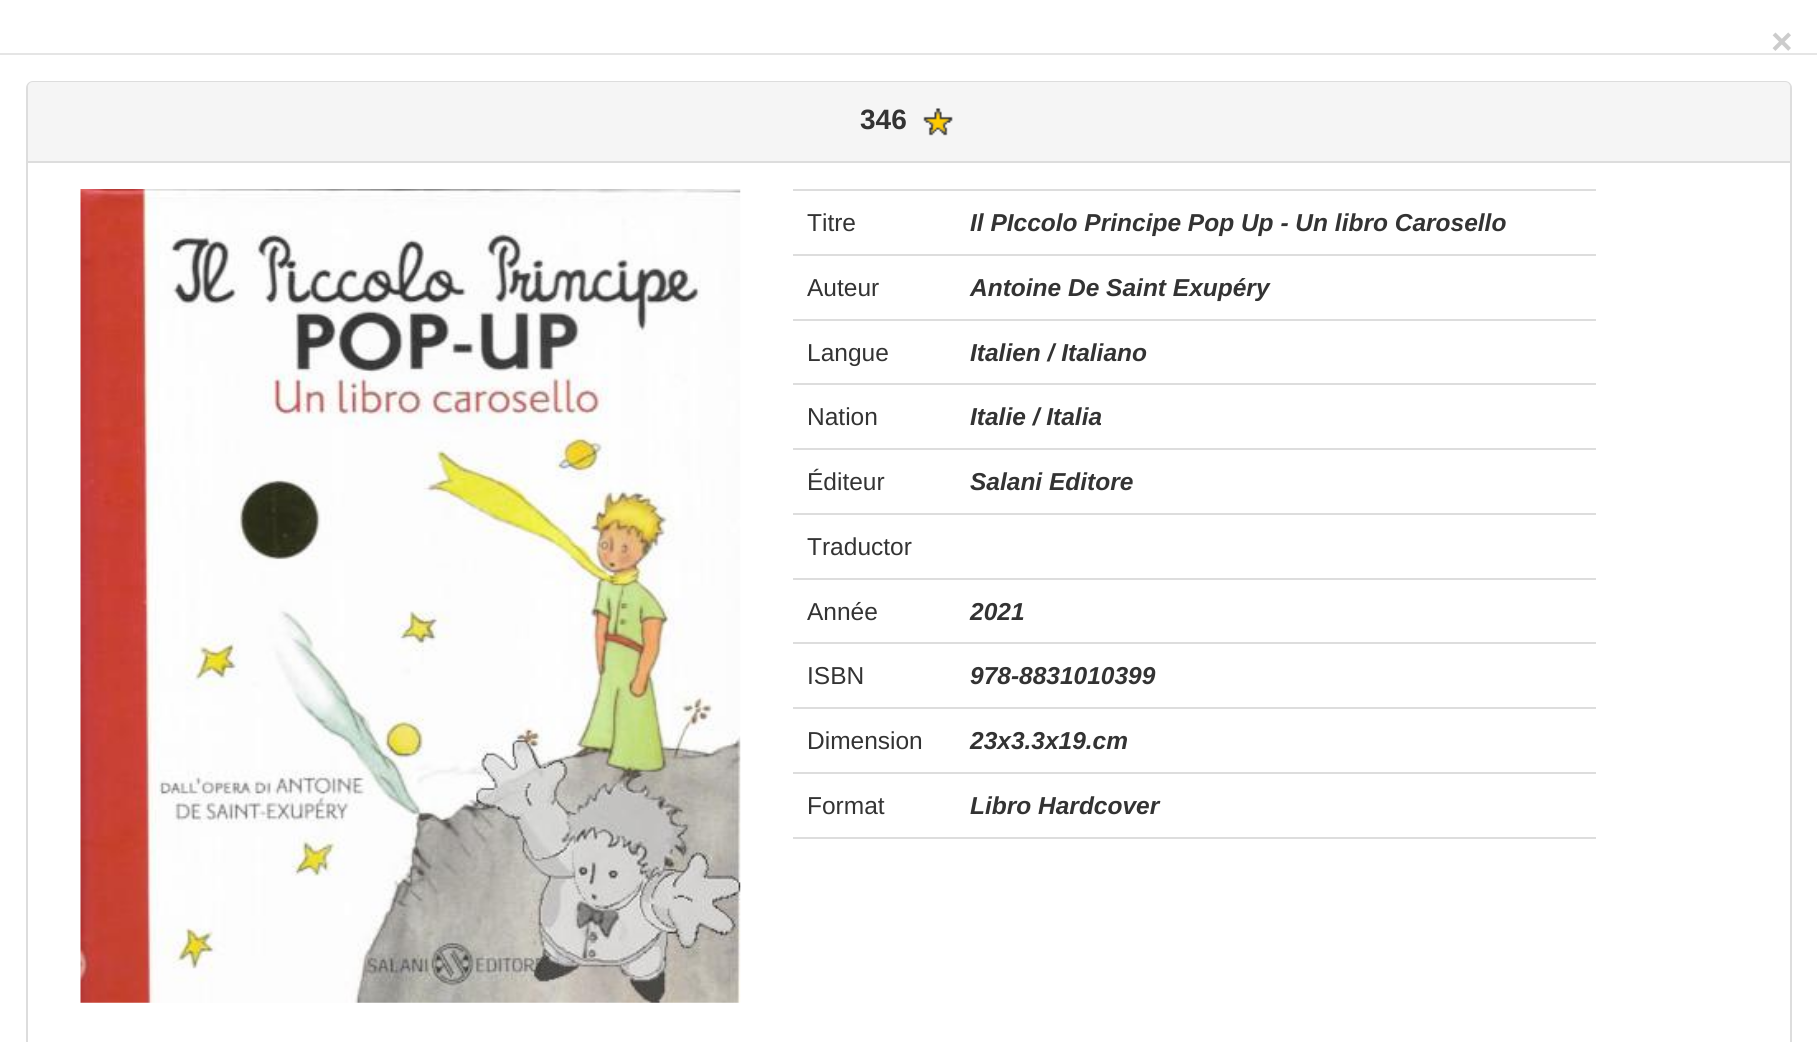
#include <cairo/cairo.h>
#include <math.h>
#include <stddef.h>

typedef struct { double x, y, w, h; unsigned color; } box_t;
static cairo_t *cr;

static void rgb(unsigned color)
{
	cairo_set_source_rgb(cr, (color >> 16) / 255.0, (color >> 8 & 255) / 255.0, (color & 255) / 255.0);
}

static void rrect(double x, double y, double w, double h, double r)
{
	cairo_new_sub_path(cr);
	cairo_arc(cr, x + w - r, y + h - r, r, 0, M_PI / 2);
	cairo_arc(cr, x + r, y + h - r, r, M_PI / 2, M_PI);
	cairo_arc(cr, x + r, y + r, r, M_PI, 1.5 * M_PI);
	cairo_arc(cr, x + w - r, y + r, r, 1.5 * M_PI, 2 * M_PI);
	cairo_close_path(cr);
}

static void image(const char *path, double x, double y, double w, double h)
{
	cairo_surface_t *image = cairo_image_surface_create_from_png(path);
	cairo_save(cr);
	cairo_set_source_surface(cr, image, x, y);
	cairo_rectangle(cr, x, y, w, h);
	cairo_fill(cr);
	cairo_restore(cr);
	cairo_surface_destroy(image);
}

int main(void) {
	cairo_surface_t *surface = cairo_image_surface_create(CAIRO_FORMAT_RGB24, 1817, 1042);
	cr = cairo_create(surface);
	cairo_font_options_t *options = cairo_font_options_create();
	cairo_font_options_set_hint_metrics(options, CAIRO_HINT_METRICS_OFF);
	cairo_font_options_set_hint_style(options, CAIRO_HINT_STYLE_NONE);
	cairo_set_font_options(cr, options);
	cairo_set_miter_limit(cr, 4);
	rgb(0xffffff);
	cairo_paint(cr);
	rgb(0xe5e5e5);
	cairo_rectangle(cr, 0, 53, 1817, 2);
	cairo_fill(cr);
	rrect(27, 82, 1764, 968, 6);
	rgb(0xdddddd);
	cairo_stroke(cr);
	rgb(0xf5f5f5);
	cairo_new_path(cr);
	cairo_move_to(cr, 33, 82);
	cairo_line_to(cr, 1785, 82);
	cairo_curve_to(cr, 1788, 82, 1790, 84, 1790, 87);
	cairo_line_to(cr, 1790, 163);
	cairo_line_to(cr, 28, 163);
	cairo_line_to(cr, 28, 87);
	cairo_curve_to(cr, 28, 84, 30, 82, 33, 82);
	cairo_close_path(cr);
	cairo_fill(cr);
	rgb(0xdddddd);
	cairo_rectangle(cr, 28, 161, 1762, 2);
	cairo_fill(cr);
	image("img/1.png", 923, 108, 30, 28);
	image("img/2.png", 80, 189, 661, 814);
	{
		static const box_t items[] = {
			{793, 189, 803, 2, 0xdddddd},
			{793, 254, 803, 2, 0xdddddd},
			{793, 319, 803, 2, 0xdddddd},
			{793, 383, 803, 2, 0xdddddd},
			{793, 448, 803, 2, 0xdddddd},
			{793, 513, 803, 2, 0xdddddd},
			{793, 578, 803, 2, 0xdddddd},
			{793, 642, 803, 2, 0xdddddd},
			{793, 707, 803, 2, 0xdddddd},
			{793, 772, 803, 2, 0xdddddd},
			{793, 837, 803, 2, 0xdddddd},
		};
		for (size_t i = 0; i < sizeof items / sizeof *items; i++) {
			rgb(items[i].color);
			cairo_rectangle(cr, items[i].x, items[i].y, items[i].w, items[i].h);
			cairo_fill(cr);
		}
	}
	cairo_select_font_face(cr, "Liberation Sans", CAIRO_FONT_SLANT_NORMAL, CAIRO_FONT_WEIGHT_BOLD);
	cairo_set_font_size(cr, 37);
	rgb(0xcccccc);
	cairo_move_to(cr, 1771, 54);
	cairo_show_text(cr, "×");
	cairo_set_font_size(cr, 28);
	rgb(0x333333);
	cairo_move_to(cr, 860, 129);
	cairo_show_text(cr, "346");
	cairo_select_font_face(cr, "Liberation Sans", CAIRO_FONT_SLANT_NORMAL, CAIRO_FONT_WEIGHT_NORMAL);
	cairo_set_font_size(cr, 24.5);
	cairo_move_to(cr, 807, 231);
	cairo_show_text(cr, "Titre");
	cairo_select_font_face(cr, "Liberation Sans", CAIRO_FONT_SLANT_ITALIC, CAIRO_FONT_WEIGHT_BOLD);
	cairo_move_to(cr, 970, 231);
	cairo_show_text(cr, "Il PIccolo Principe Pop Up - Un libro Carosello");
	cairo_select_font_face(cr, "Liberation Sans", CAIRO_FONT_SLANT_NORMAL, CAIRO_FONT_WEIGHT_NORMAL);
	cairo_move_to(cr, 807, 296);
	cairo_show_text(cr, "Auteur");
	cairo_select_font_face(cr, "Liberation Sans", CAIRO_FONT_SLANT_ITALIC, CAIRO_FONT_WEIGHT_BOLD);
	cairo_move_to(cr, 970, 296);
	cairo_show_text(cr, "Antoine De Saint Exupéry");
	cairo_select_font_face(cr, "Liberation Sans", CAIRO_FONT_SLANT_NORMAL, CAIRO_FONT_WEIGHT_NORMAL);
	cairo_move_to(cr, 807, 361);
	cairo_show_text(cr, "Langue");
	cairo_select_font_face(cr, "Liberation Sans", CAIRO_FONT_SLANT_ITALIC, CAIRO_FONT_WEIGHT_BOLD);
	cairo_move_to(cr, 970, 361);
	cairo_show_text(cr, "Italien / Italiano");
	cairo_select_font_face(cr, "Liberation Sans", CAIRO_FONT_SLANT_NORMAL, CAIRO_FONT_WEIGHT_NORMAL);
	cairo_move_to(cr, 807, 425);
	cairo_show_text(cr, "Nation");
	cairo_select_font_face(cr, "Liberation Sans", CAIRO_FONT_SLANT_ITALIC, CAIRO_FONT_WEIGHT_BOLD);
	cairo_move_to(cr, 970, 425);
	cairo_show_text(cr, "Italie / Italia");
	cairo_select_font_face(cr, "Liberation Sans", CAIRO_FONT_SLANT_NORMAL, CAIRO_FONT_WEIGHT_NORMAL);
	cairo_move_to(cr, 807, 490);
	cairo_show_text(cr, "Éditeur");
	cairo_select_font_face(cr, "Liberation Sans", CAIRO_FONT_SLANT_ITALIC, CAIRO_FONT_WEIGHT_BOLD);
	cairo_move_to(cr, 970, 490);
	cairo_show_text(cr, "Salani Editore");
	cairo_select_font_face(cr, "Liberation Sans", CAIRO_FONT_SLANT_NORMAL, CAIRO_FONT_WEIGHT_NORMAL);
	cairo_move_to(cr, 807, 555);
	cairo_show_text(cr, "Traductor");
	cairo_move_to(cr, 807, 620);
	cairo_show_text(cr, "Année");
	cairo_select_font_face(cr, "Liberation Sans", CAIRO_FONT_SLANT_ITALIC, CAIRO_FONT_WEIGHT_BOLD);
	cairo_move_to(cr, 970, 620);
	cairo_show_text(cr, "2021");
	cairo_select_font_face(cr, "Liberation Sans", CAIRO_FONT_SLANT_NORMAL, CAIRO_FONT_WEIGHT_NORMAL);
	cairo_move_to(cr, 807, 684);
	cairo_show_text(cr, "ISBN");
	cairo_select_font_face(cr, "Liberation Sans", CAIRO_FONT_SLANT_ITALIC, CAIRO_FONT_WEIGHT_BOLD);
	cairo_move_to(cr, 970, 684);
	cairo_show_text(cr, "978-8831010399");
	cairo_select_font_face(cr, "Liberation Sans", CAIRO_FONT_SLANT_NORMAL, CAIRO_FONT_WEIGHT_NORMAL);
	cairo_move_to(cr, 807, 749);
	cairo_show_text(cr, "Dimension");
	cairo_select_font_face(cr, "Liberation Sans", CAIRO_FONT_SLANT_ITALIC, CAIRO_FONT_WEIGHT_BOLD);
	cairo_move_to(cr, 970, 749);
	cairo_show_text(cr, "23x3.3x19.cm");
	cairo_select_font_face(cr, "Liberation Sans", CAIRO_FONT_SLANT_NORMAL, CAIRO_FONT_WEIGHT_NORMAL);
	cairo_move_to(cr, 807, 814);
	cairo_show_text(cr, "Format");
	cairo_select_font_face(cr, "Liberation Sans", CAIRO_FONT_SLANT_ITALIC, CAIRO_FONT_WEIGHT_BOLD);
	cairo_move_to(cr, 970, 814);
	cairo_show_text(cr, "Libro Hardcover");
	cairo_surface_write_to_png(surface, "page.png");
	cairo_font_options_destroy(options);
	cairo_destroy(cr);
	cairo_surface_destroy(surface);
	return 0;
}
